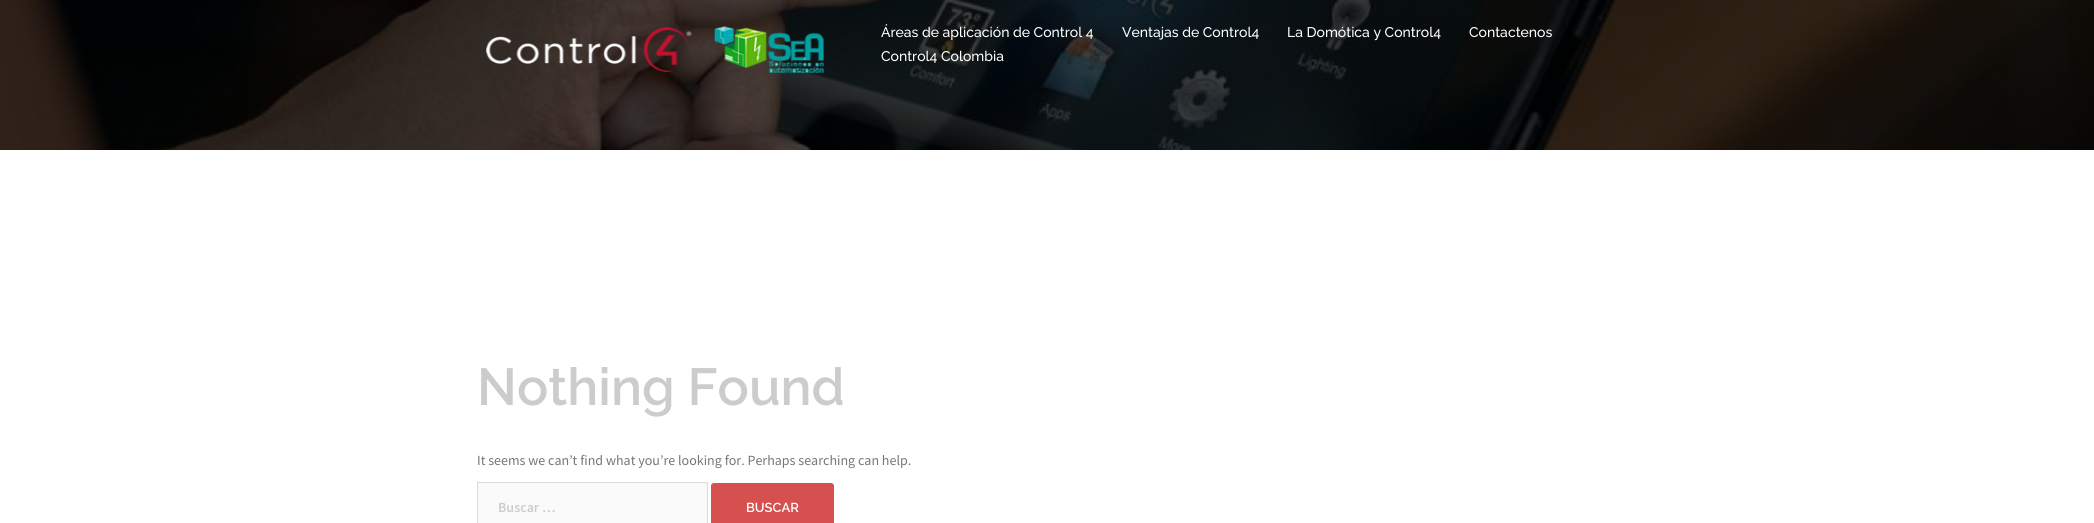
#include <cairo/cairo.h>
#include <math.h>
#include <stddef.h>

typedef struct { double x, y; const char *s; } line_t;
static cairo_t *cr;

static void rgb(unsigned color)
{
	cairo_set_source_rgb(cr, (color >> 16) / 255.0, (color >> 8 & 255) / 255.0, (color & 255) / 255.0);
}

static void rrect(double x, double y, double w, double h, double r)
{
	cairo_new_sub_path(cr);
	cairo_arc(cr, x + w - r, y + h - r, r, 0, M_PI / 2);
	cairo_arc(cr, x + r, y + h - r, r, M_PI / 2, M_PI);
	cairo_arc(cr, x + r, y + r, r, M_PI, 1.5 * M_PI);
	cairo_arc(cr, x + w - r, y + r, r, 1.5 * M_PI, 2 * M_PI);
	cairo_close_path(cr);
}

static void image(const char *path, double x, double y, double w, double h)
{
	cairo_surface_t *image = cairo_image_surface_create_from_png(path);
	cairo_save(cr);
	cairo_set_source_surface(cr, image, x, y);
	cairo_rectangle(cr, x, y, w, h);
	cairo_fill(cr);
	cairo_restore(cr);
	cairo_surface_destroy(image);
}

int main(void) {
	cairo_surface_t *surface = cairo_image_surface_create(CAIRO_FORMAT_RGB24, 2094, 523);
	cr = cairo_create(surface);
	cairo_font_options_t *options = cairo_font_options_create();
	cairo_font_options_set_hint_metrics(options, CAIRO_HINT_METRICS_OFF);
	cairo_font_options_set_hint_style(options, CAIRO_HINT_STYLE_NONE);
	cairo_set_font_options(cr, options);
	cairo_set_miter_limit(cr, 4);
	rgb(0xffffff);
	cairo_paint(cr);
	image("img/1.png", 0, 0, 2094, 150);
	image("img/2.png", 486, 26, 338, 47);
	rgb(0xfafafa);
	cairo_rectangle(cr, 477.5, 482.5, 230, 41);
	cairo_fill_preserve(cr);
	rgb(0xdbdbdb);
	cairo_set_line_width(cr, 1);
	cairo_stroke(cr);
	rgb(0xd65050);
	rrect(711.5, 483.5, 122, 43, 2.5);
	cairo_fill_preserve(cr);
	cairo_stroke(cr);
	cairo_select_font_face(cr, "Raleway Medium", CAIRO_FONT_SLANT_NORMAL, CAIRO_FONT_WEIGHT_NORMAL);
	cairo_set_font_size(cr, 14);
	rgb(0xffffff);
	{
		static const line_t items[] = {
			{881, 37, "Áreas de aplicación de Control 4"},
			{1122, 37, "Ventajas de Control4"},
			{1287, 37, "La Domótica y Control4"},
			{1469, 37, "Contactenos"},
			{881, 61, "Control4 Colombia"},
		};
		for (size_t i = 0; i < sizeof items / sizeof *items; i++) {
			cairo_move_to(cr, items[i].x, items[i].y);
			cairo_show_text(cr, items[i].s);
		}
	}
	cairo_select_font_face(cr, "Raleway SemiBold", CAIRO_FONT_SLANT_NORMAL, CAIRO_FONT_WEIGHT_NORMAL);
	cairo_set_font_size(cr, 52);
	rgb(0xcccccc);
	cairo_move_to(cr, 477, 405);
	cairo_show_text(cr, "Nothing Found");
	cairo_select_font_face(cr, "Source Sans Pro", CAIRO_FONT_SLANT_NORMAL, CAIRO_FONT_WEIGHT_NORMAL);
	cairo_set_font_size(cr, 14);
	rgb(0x767676);
	cairo_move_to(cr, 477, 465);
	cairo_show_text(cr, "It seems we can’t find what you’re looking for. Perhaps searching can help.");
	cairo_select_font_face(cr, "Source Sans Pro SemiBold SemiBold", CAIRO_FONT_SLANT_NORMAL, CAIRO_FONT_WEIGHT_NORMAL);
	rgb(0xcccccc);
	cairo_move_to(cr, 498, 512);
	cairo_show_text(cr, "Buscar …");
	cairo_select_font_face(cr, "Raleway SemiBold", CAIRO_FONT_SLANT_NORMAL, CAIRO_FONT_WEIGHT_NORMAL);
	cairo_set_font_size(cr, 13);
	rgb(0xffffff);
	cairo_move_to(cr, 746, 512);
	cairo_show_text(cr, "BUSCAR");
	cairo_surface_write_to_png(surface, "page.png");
	cairo_font_options_destroy(options);
	cairo_destroy(cr);
	cairo_surface_destroy(surface);
	return 0;
}
